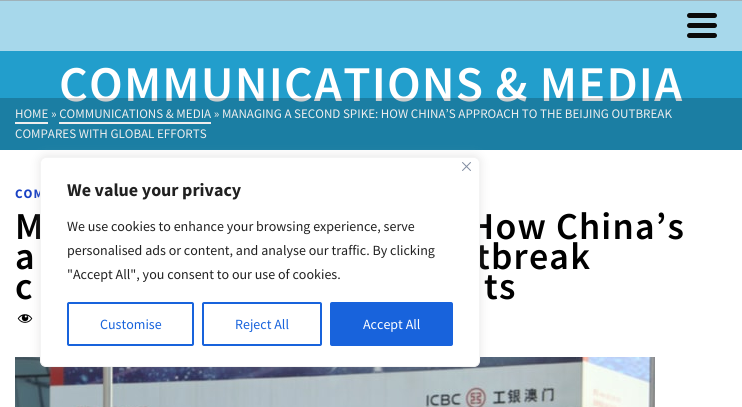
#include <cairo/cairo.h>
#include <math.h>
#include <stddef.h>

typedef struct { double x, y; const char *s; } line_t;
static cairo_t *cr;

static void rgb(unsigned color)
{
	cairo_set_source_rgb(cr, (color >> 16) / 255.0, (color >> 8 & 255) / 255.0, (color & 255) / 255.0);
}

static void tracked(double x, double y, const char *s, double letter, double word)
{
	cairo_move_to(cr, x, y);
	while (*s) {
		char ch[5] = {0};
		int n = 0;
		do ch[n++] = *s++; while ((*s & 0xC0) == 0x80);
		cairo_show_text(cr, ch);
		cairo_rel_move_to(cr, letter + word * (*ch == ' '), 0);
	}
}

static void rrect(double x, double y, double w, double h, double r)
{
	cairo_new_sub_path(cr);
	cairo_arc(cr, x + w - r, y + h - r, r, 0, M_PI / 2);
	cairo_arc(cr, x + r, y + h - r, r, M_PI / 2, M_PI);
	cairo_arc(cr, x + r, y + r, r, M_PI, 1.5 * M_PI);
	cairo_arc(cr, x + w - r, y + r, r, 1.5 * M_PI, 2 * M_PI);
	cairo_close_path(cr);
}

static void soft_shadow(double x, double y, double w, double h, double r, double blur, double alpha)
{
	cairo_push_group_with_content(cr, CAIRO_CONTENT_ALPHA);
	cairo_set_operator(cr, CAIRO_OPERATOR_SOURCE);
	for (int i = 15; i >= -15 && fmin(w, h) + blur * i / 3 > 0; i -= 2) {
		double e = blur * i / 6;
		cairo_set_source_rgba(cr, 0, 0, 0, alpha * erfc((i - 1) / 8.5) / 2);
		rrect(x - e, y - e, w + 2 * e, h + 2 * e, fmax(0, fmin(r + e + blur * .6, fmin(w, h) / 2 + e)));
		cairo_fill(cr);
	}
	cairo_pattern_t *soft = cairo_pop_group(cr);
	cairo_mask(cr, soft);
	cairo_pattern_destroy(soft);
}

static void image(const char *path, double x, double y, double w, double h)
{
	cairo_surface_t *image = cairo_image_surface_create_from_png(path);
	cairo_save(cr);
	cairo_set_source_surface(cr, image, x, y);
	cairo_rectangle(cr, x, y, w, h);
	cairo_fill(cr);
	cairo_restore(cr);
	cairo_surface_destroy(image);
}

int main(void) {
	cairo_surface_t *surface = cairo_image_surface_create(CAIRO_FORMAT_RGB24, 742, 407);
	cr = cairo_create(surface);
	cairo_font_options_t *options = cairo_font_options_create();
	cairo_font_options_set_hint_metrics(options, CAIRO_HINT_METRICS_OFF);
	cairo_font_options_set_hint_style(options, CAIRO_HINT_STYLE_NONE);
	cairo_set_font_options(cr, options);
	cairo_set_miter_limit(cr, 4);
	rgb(0xffffff);
	cairo_paint(cr);
	rgb(0x9fb2ba);
	cairo_rectangle(cr, 0, 0, 742, 1);
	cairo_fill(cr);
	rgb(0xa7d8eb);
	cairo_rectangle(cr, 0, 1, 742, 50);
	cairo_fill(cr);
	rgb(0x0a0a0a);
	rrect(687, 13, 30, 5, 2.5);
	cairo_fill(cr);
	rrect(687, 23, 30, 5, 2.5);
	cairo_fill(cr);
	rrect(687, 33, 30, 5, 2.5);
	cairo_fill(cr);
	rgb(0x229ecc);
	cairo_rectangle(cr, 0, 51, 742, 99);
	cairo_fill(cr);
	image("img/1.png", 17, 314, 16, 9);
	image("img/2.png", 15, 357, 640, 50);
	cairo_select_font_face(cr, "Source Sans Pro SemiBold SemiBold", CAIRO_FONT_SLANT_NORMAL, CAIRO_FONT_WEIGHT_NORMAL);
	cairo_set_font_size(cr, 50);
	rgb(0xffffff);
	tracked(59, 101, "COMMUNICATIONS & MEDIA", 1.2, 0);
	cairo_set_source_rgba(cr, 0, 0, 0, 0.2);
	cairo_rectangle(cr, 0, 98, 742, 52);
	cairo_fill(cr);
	cairo_select_font_face(cr, "Source Sans Pro", CAIRO_FONT_SLANT_NORMAL, CAIRO_FONT_WEIGHT_NORMAL);
	cairo_set_font_size(cr, 13);
	rgb(0xeeeeee);
	cairo_move_to(cr, 15, 118);
	cairo_show_text(cr, "HOME » COMMUNICATIONS & MEDIA » MANAGING A SECOND SPIKE: HOW CHINA’S APPROACH TO THE BEIJING OUTBREAK");
	cairo_rectangle(cr, 15, 122, 33, 2);
	cairo_fill(cr);
	cairo_rectangle(cr, 59, 122, 152, 2);
	cairo_fill(cr);
	cairo_move_to(cr, 15, 138);
	cairo_show_text(cr, "COMPARES WITH GLOBAL EFFORTS");
	cairo_select_font_face(cr, "Source Sans Pro", CAIRO_FONT_SLANT_NORMAL, CAIRO_FONT_WEIGHT_BOLD);
	rgb(0x1941c4);
	tracked(15, 198, "COM", 1, 0);
	cairo_select_font_face(cr, "Source Sans Pro SemiBold SemiBold", CAIRO_FONT_SLANT_NORMAL, CAIRO_FONT_WEIGHT_NORMAL);
	cairo_set_font_size(cr, 38);
	rgb(0x000000);
	{
		static const line_t items[] = {
			{15, 239, "M"},
			{469, 239, "How China’s"},
			{15, 269, "a"},
			{476, 269, "tbreak"},
			{15, 299, "c"},
			{484, 299, "ts"},
		};
		for (size_t i = 0; i < sizeof items / sizeof *items; i++) {
			tracked(items[i].x, items[i].y, items[i].s, 1.2, 0);
		}
	}
	rgb(0xacabab);
	soft_shadow(40, 156, 440, 210, 6, 5, 0.3);
	rgb(0xffffff);
	rrect(40.5, 157.5, 439, 209, 5.5);
	cairo_fill_preserve(cr);
	rgb(0xf4f4f4);
	cairo_set_line_width(cr, 1);
	cairo_stroke(cr);
	image("img/3.png", 462, 162, 9, 9);
	cairo_select_font_face(cr, "Source Sans Pro", CAIRO_FONT_SLANT_NORMAL, CAIRO_FONT_WEIGHT_BOLD);
	cairo_set_font_size(cr, 18);
	rgb(0x212121);
	cairo_move_to(cr, 67, 196);
	cairo_show_text(cr, "We value your privacy");
	cairo_select_font_face(cr, "Source Sans Pro", CAIRO_FONT_SLANT_NORMAL, CAIRO_FONT_WEIGHT_NORMAL);
	cairo_set_font_size(cr, 14);
	{
		static const line_t items[] = {
			{67, 231, "We use cookies to enhance your browsing experience, serve"},
			{67, 255, "personalised ads or content, and analyse our traffic. By clicking"},
			{67, 279, "\"Accept All\", you consent to our use of cookies."},
		};
		for (size_t i = 0; i < sizeof items / sizeof *items; i++) {
			cairo_move_to(cr, items[i].x, items[i].y);
			cairo_show_text(cr, items[i].s);
		}
	}
	rrect(68, 303, 125, 42, 1);
	rgb(0x1863dc);
	cairo_set_line_width(cr, 2);
	cairo_stroke(cr);
	cairo_move_to(cr, 100, 329);
	cairo_show_text(cr, "Customise");
	rrect(203, 303, 118, 42, 1);
	cairo_stroke(cr);
	cairo_move_to(cr, 235, 329);
	cairo_show_text(cr, "Reject All");
	rrect(331, 303, 121, 42, 1);
	cairo_fill_preserve(cr);
	cairo_stroke(cr);
	rgb(0xffffff);
	cairo_move_to(cr, 363, 329);
	cairo_show_text(cr, "Accept All");
	cairo_surface_write_to_png(surface, "page.png");
	cairo_font_options_destroy(options);
	cairo_destroy(cr);
	cairo_surface_destroy(surface);
	return 0;
}
